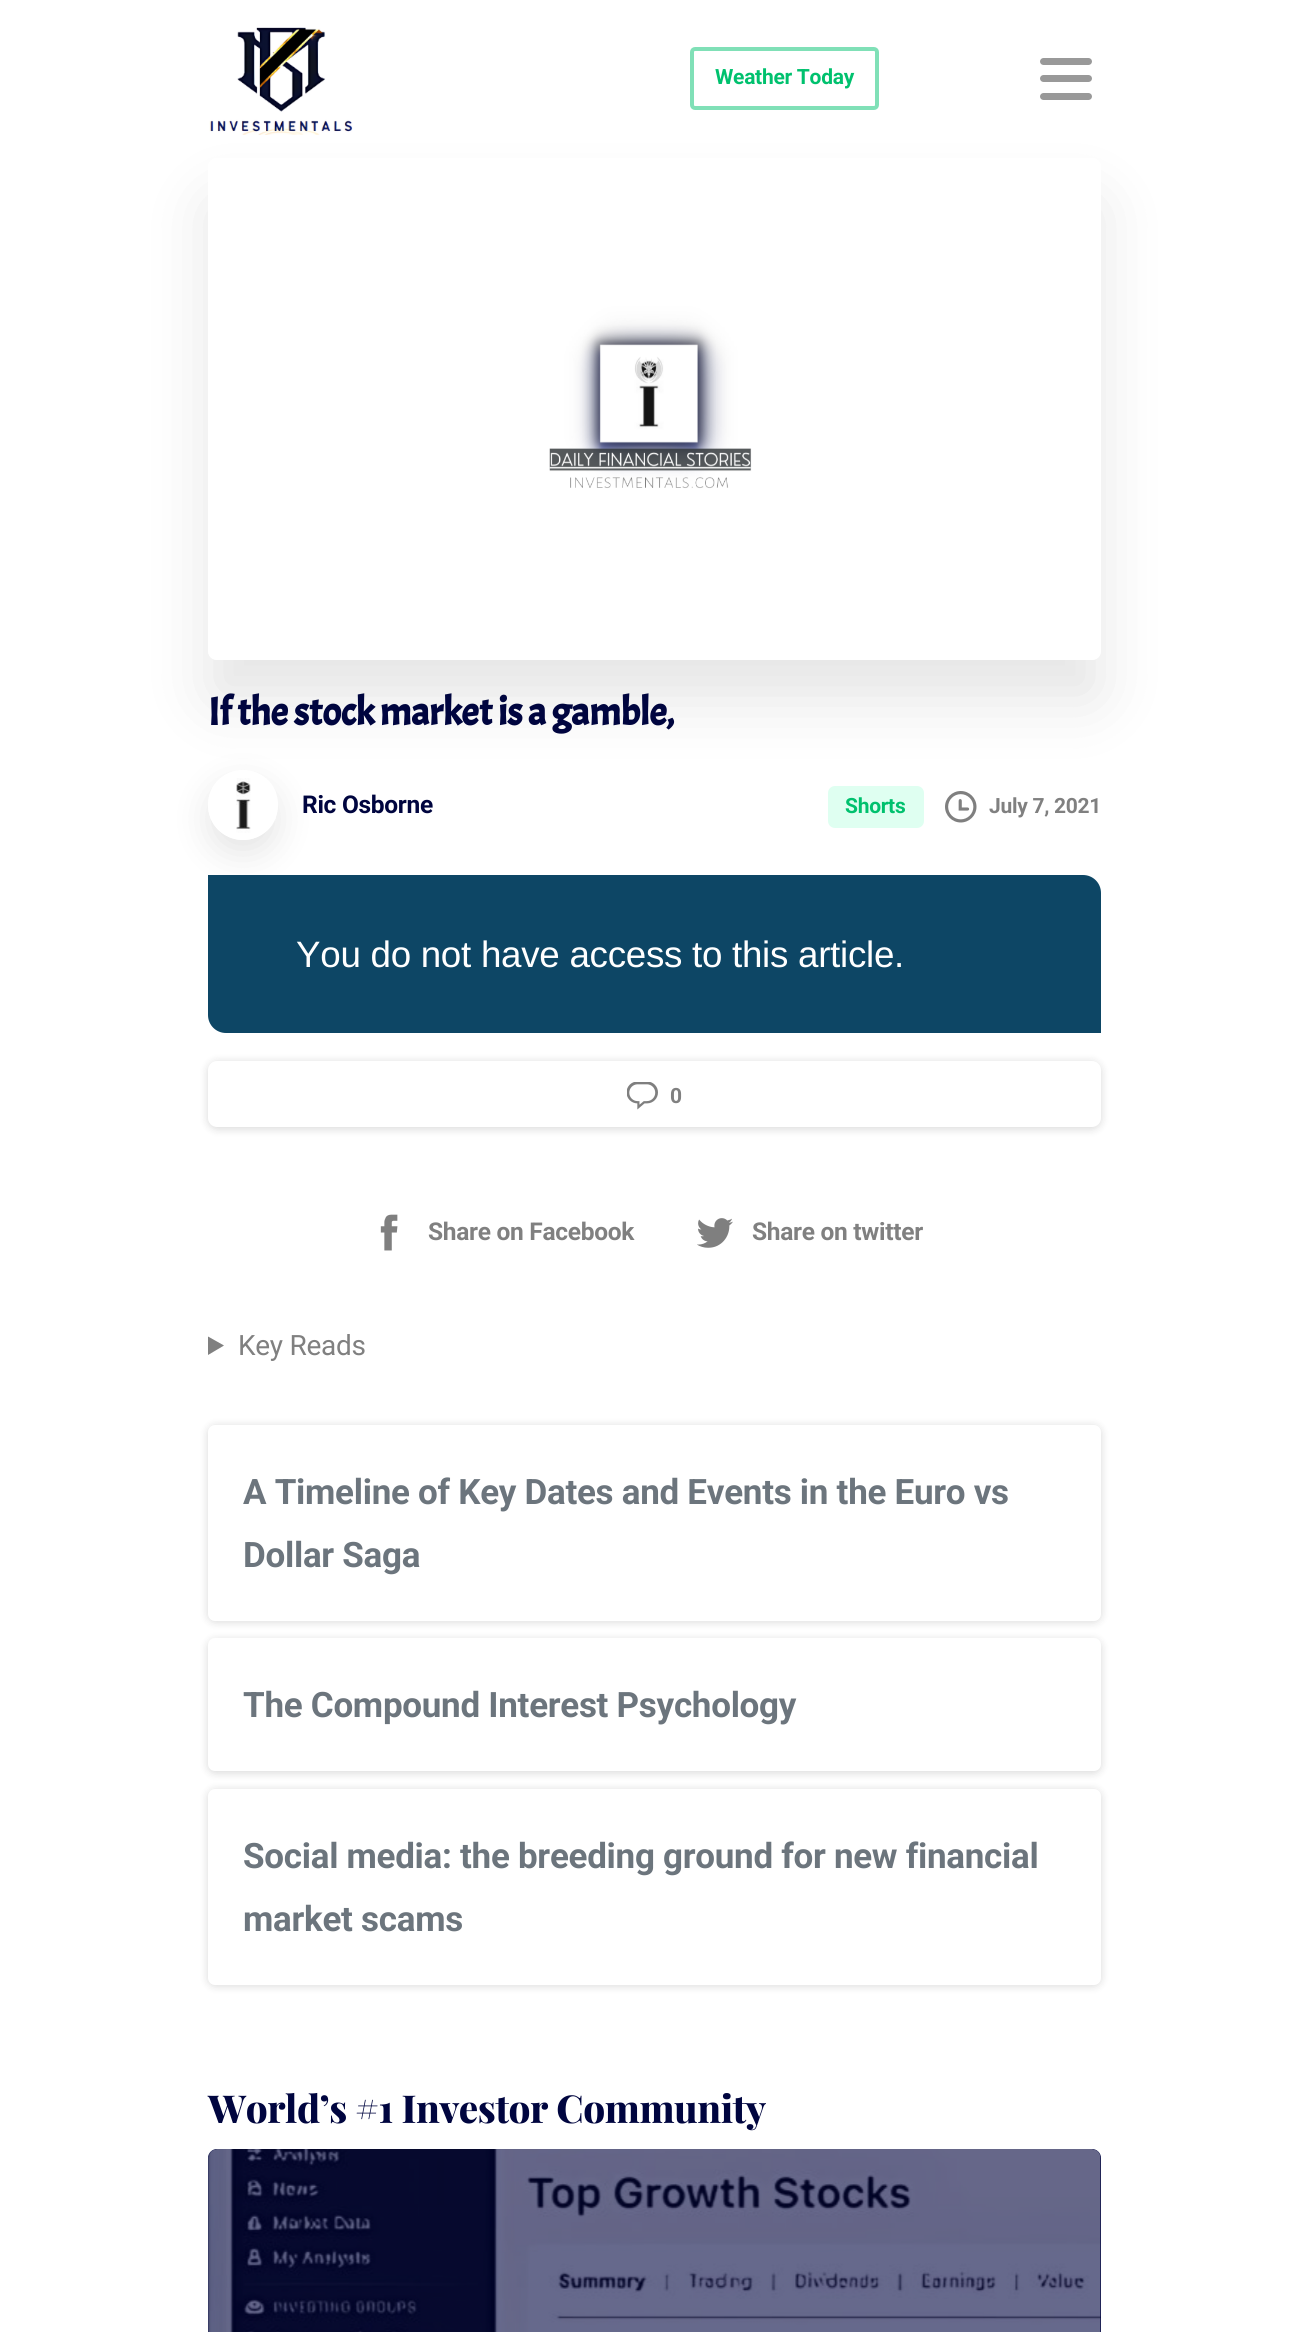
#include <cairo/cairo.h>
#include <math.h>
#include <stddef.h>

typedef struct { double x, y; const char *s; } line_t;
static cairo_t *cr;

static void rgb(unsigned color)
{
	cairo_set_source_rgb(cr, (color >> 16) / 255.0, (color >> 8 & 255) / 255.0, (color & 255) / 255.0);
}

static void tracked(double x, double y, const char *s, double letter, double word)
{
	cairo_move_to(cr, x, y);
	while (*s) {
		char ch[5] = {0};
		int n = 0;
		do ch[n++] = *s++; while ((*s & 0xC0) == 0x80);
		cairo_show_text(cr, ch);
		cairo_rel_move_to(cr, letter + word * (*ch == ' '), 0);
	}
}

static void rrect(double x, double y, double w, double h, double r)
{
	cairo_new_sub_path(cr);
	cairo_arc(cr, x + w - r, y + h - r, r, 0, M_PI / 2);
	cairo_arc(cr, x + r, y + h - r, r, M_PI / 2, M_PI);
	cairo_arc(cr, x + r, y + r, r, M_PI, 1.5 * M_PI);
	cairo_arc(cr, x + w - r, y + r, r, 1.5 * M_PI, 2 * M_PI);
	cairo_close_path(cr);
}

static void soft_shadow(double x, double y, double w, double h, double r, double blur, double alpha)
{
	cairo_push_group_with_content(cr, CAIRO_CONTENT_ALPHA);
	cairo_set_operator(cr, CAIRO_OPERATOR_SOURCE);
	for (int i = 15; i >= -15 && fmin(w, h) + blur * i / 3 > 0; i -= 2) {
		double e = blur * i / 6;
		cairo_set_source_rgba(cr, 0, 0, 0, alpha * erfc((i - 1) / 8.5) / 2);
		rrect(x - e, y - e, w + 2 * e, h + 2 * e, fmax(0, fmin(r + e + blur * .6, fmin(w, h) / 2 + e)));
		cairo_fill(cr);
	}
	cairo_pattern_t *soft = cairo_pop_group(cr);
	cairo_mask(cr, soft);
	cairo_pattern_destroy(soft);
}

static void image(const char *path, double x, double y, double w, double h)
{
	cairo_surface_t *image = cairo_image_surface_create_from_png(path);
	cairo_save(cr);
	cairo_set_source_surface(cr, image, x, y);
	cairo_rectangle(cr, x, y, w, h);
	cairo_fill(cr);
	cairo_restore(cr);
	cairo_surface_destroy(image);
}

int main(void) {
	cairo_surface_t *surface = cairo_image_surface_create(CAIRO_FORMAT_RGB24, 1308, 2332);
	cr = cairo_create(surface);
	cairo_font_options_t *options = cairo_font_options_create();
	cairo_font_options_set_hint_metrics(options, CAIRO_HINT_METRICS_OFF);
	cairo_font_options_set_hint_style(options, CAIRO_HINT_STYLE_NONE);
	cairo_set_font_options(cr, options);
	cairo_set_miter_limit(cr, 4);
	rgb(0xffffff);
	cairo_paint(cr);
	rgb(0x0d4665);
	cairo_new_path(cr);
	cairo_move_to(cr, 208, 875);
	cairo_line_to(cr, 1083, 875);
	cairo_curve_to(cr, 1093, 875, 1101, 883, 1101, 893);
	cairo_line_to(cr, 1101, 1033);
	cairo_line_to(cr, 226, 1033);
	cairo_curve_to(cr, 216, 1033, 208, 1025, 208, 1015);
	cairo_close_path(cr);
	cairo_fill(cr);
	cairo_save(cr);
	cairo_set_fill_rule(cr, CAIRO_FILL_RULE_EVEN_ODD);
	cairo_new_path(cr);
	cairo_move_to(cr, 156, 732);
	cairo_line_to(cr, 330, 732);
	cairo_line_to(cr, 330, 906);
	cairo_line_to(cr, 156, 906);
	cairo_close_path(cr);
	cairo_move_to(cr, 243, 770);
	cairo_curve_to(cr, 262.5, 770, 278, 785.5, 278, 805);
	cairo_curve_to(cr, 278, 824.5, 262.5, 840, 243, 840);
	cairo_curve_to(cr, 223.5, 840, 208, 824.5, 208, 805);
	cairo_curve_to(cr, 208, 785.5, 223.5, 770, 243, 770);
	cairo_close_path(cr);
	cairo_clip(cr);
	rgb(0x000000);
	soft_shadow(208, 784, 70, 70, 35, 17, 0.1);
	cairo_restore(cr);
	image("img/3.png", 208, 778, 68, 62);
	rgb(0xdffff1);
	rrect(828, 786, 96, 42, 7);
	cairo_fill(cr);
	image("img/4.png", 945, 791, 32, 32);
	cairo_save(cr);
	cairo_set_fill_rule(cr, CAIRO_FILL_RULE_EVEN_ODD);
	cairo_new_path(cr);
	cairo_move_to(cr, 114, 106);
	cairo_line_to(cr, 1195, 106);
	cairo_line_to(cr, 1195, 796);
	cairo_line_to(cr, 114, 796);
	cairo_close_path(cr);
	cairo_move_to(cr, 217, 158);
	cairo_line_to(cr, 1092, 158);
	cairo_curve_to(cr, 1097, 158, 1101, 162, 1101, 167);
	cairo_line_to(cr, 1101, 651);
	cairo_curve_to(cr, 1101, 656, 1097, 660, 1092, 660);
	cairo_line_to(cr, 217, 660);
	cairo_curve_to(cr, 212, 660, 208, 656, 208, 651);
	cairo_line_to(cr, 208, 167);
	cairo_curve_to(cr, 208, 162, 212, 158, 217, 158);
	cairo_close_path(cr);
	cairo_clip(cr);
	rgb(0x000000);
	soft_shadow(208, 200, 893, 502, 9, 31, 0.1);
	cairo_restore(cr);
	image("img/1.png", 209, 27, 144, 108);
	rrect(692, 49, 185, 59, 3);
	rgb(0x80e0b7);
	cairo_set_line_width(cr, 4);
	cairo_stroke(cr);
	rgb(0x999999);
	rrect(1040, 75, 52, 7, 3.5);
	cairo_fill(cr);
	rrect(1040, 58, 52, 7, 3.5);
	cairo_fill(cr);
	rrect(1040, 93, 52, 7, 3.5);
	cairo_fill(cr);
	image("img/2.png", 208, 306, 893, 354);
	rgb(0x000000);
	soft_shadow(208, 1062, 893, 67, 9, 4.5, 0.15);
	rgb(0xffffff);
	rrect(208, 1061, 893, 66, 9);
	cairo_fill(cr);
	image("img/5.png", 627, 1082, 31, 28);
	image("img/6.png", 380, 1214, 18, 37);
	image("img/7.png", 697, 1218, 36, 30);
	rgb(0x808080);
	cairo_new_path(cr);
	cairo_move_to(cr, 208, 1336.5);
	cairo_line_to(cr, 224, 1345.5);
	cairo_line_to(cr, 208, 1355);
	cairo_close_path(cr);
	cairo_fill(cr);
	rgb(0x000000);
	soft_shadow(208, 1426, 893, 196, 7, 4.5, 0.15);
	rgb(0xffffff);
	rrect(208, 1425, 893, 196, 7);
	cairo_fill(cr);
	rgb(0x000000);
	soft_shadow(208, 1640, 893, 133, 7, 4.5, 0.15);
	rgb(0xffffff);
	rrect(208, 1638, 893, 133, 7);
	cairo_fill(cr);
	rgb(0x000000);
	soft_shadow(208, 1790, 893, 196, 7, 4.5, 0.15);
	rgb(0xffffff);
	rrect(208, 1789, 893, 196, 7);
	cairo_fill(cr);
	rgb(0x00053f);
	rrect(208, 2149, 893, 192, 9);
	cairo_fill(cr);
	image("img/8.png", 208, 2149, 893, 183);
	cairo_select_font_face(cr, "Roboto", CAIRO_FONT_SLANT_NORMAL, CAIRO_FONT_WEIGHT_BOLD);
	cairo_set_font_size(cr, 21);
	rgb(0x00c16e);
	tracked(715, 84, "Weather Today", -0.28, 0);
	cairo_select_font_face(cr, "Acme", CAIRO_FONT_SLANT_NORMAL, CAIRO_FONT_WEIGHT_BOLD);
	cairo_set_font_size(cr, 39.4);
	rgb(0x00053f);
	tracked(208, 725, "If the stock market is a gamble,", -0.4, 0);
	cairo_select_font_face(cr, "Roboto", CAIRO_FONT_SLANT_NORMAL, CAIRO_FONT_WEIGHT_BOLD);
	cairo_set_font_size(cr, 24.5);
	tracked(302, 813, "Ric Osborne", -0.28, 0);
	cairo_set_font_size(cr, 21);
	rgb(0x00c16e);
	tracked(845, 813, "Shorts", -0.28, 0);
	rgb(0x808080);
	tracked(989, 813, "July 7, 2021", -0.28, 0);
	cairo_select_font_face(cr, "Liberation Sans", CAIRO_FONT_SLANT_NORMAL, CAIRO_FONT_WEIGHT_NORMAL);
	cairo_set_font_size(cr, 36.75);
	rgb(0xffffff);
	tracked(296, 967, "You do not have access to this article.", -0.28, 0);
	cairo_select_font_face(cr, "Roboto", CAIRO_FONT_SLANT_NORMAL, CAIRO_FONT_WEIGHT_BOLD);
	cairo_set_font_size(cr, 21);
	rgb(0x808080);
	tracked(670, 1103, "0", -0.28, 0);
	cairo_set_font_size(cr, 24.5);
	tracked(428, 1240, "Share on Facebook", -0.28, 0);
	tracked(752, 1240, "Share on twitter", -0.28, 0);
	cairo_select_font_face(cr, "Roboto", CAIRO_FONT_SLANT_NORMAL, CAIRO_FONT_WEIGHT_NORMAL);
	cairo_set_font_size(cr, 28);
	tracked(238, 1355, "Key Reads", -0.28, 0);
	cairo_select_font_face(cr, "Roboto", CAIRO_FONT_SLANT_NORMAL, CAIRO_FONT_WEIGHT_BOLD);
	cairo_set_font_size(cr, 35);
	rgb(0x6c757d);
	{
		static const line_t items[] = {
			{243, 1504, "A Timeline of Key Dates and Events in the Euro vs"},
			{243, 1567, "Dollar Saga"},
			{243, 1717, "The Compound Interest Psychology"},
			{243, 1868, "Social media: the breeding ground for new financial"},
			{243, 1931, "market scams"},
		};
		for (size_t i = 0; i < sizeof items / sizeof *items; i++) {
			tracked(items[i].x, items[i].y, items[i].s, -0.28, 0);
		}
	}
	cairo_select_font_face(cr, "Playfair Display ExtraBold", CAIRO_FONT_SLANT_NORMAL, CAIRO_FONT_WEIGHT_NORMAL);
	cairo_set_font_size(cr, 38.5);
	rgb(0x00053f);
	tracked(208, 2123, "World’s #1 Investor Community", -0.4, 0);
	cairo_surface_write_to_png(surface, "page.png");
	cairo_font_options_destroy(options);
	cairo_destroy(cr);
	cairo_surface_destroy(surface);
	return 0;
}
